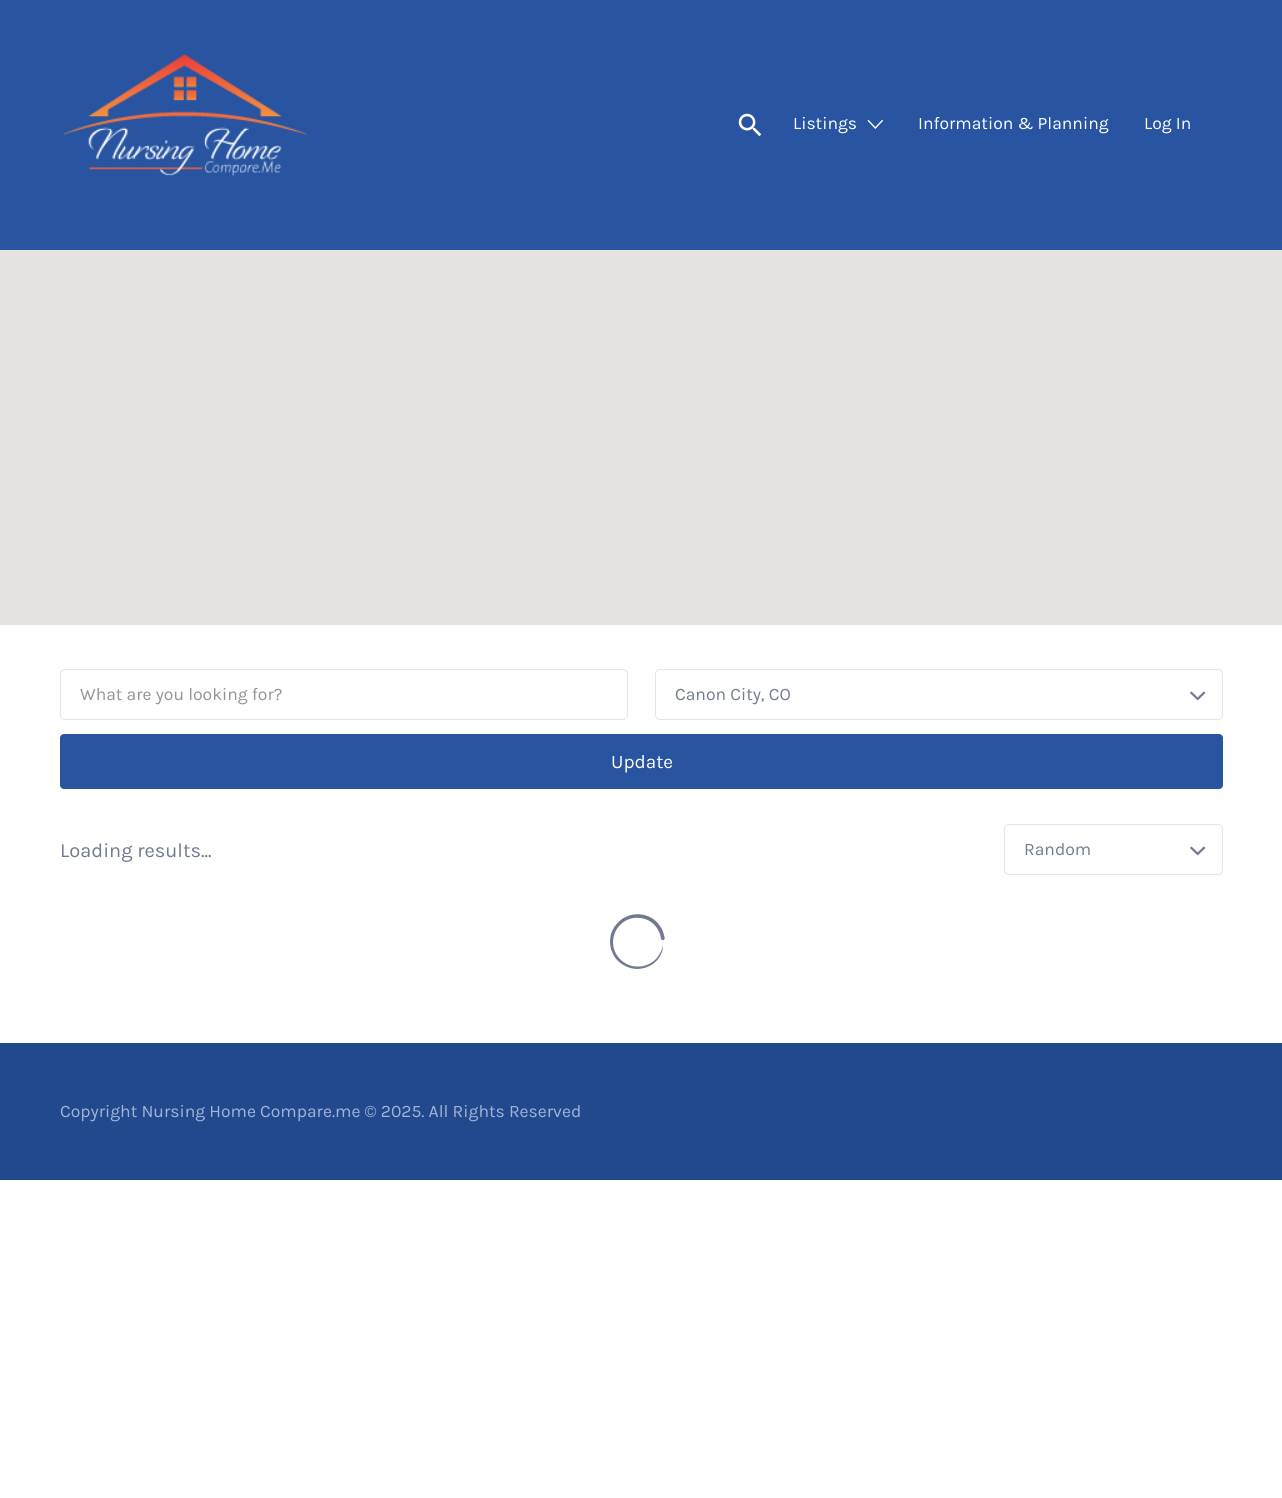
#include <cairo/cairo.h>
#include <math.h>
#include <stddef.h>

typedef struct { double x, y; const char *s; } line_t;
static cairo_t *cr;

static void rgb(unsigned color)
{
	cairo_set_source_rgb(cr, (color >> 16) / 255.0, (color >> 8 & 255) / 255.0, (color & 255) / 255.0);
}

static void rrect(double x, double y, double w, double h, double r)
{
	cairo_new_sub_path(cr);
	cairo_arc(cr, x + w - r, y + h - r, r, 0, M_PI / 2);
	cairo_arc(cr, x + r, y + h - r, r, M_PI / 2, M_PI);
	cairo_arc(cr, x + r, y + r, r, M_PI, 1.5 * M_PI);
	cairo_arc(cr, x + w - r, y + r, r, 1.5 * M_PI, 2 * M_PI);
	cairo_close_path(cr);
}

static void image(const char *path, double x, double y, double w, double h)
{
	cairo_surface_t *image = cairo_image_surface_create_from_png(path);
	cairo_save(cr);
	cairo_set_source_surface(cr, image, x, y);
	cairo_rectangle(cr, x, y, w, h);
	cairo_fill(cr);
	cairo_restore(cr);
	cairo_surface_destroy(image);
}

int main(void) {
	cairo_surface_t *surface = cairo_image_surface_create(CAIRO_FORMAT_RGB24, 1282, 1498);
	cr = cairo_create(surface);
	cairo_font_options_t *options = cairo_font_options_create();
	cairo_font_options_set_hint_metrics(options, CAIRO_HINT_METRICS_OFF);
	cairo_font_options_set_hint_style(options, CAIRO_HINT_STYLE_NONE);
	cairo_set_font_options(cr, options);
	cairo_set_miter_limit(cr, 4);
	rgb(0xffffff);
	cairo_paint(cr);
	rgb(0x2854a1);
	cairo_rectangle(cr, 0, 0, 1282, 250);
	cairo_fill(cr);
	image("img/1.png", 62, 53, 246, 124);
	image("img/2.png", 738, 113, 24, 24);
	image("img/3.png", 867, 119, 16, 10);
	rgb(0xe5e3df);
	cairo_rectangle(cr, 0, 250, 1282, 375);
	cairo_fill(cr);
	rrect(60.5, 669.5, 567, 50, 4.5);
	rgb(0xe5e5e5);
	cairo_set_line_width(cr, 1);
	cairo_stroke(cr);
	rrect(655.5, 669.5, 567, 50, 4.5);
	cairo_stroke(cr);
	image("img/4.png", 1190, 691, 16, 10);
	rgb(0x2854a1);
	rrect(60, 734, 1163, 55, 4);
	cairo_fill(cr);
	rrect(1004.5, 824.5, 218, 50, 4.5);
	rgb(0xe5e5e5);
	cairo_stroke(cr);
	image("img/4.png", 1190, 846, 16, 10);
	image("img/5.png", 610, 914, 55, 55);
	rgb(0x22498e);
	cairo_rectangle(cr, 0, 1043, 1282, 137);
	cairo_fill(cr);
	cairo_select_font_face(cr, "Karla", CAIRO_FONT_SLANT_NORMAL, CAIRO_FONT_WEIGHT_NORMAL);
	cairo_set_font_size(cr, 17.5);
	rgb(0xffffff);
	{
		static const line_t items[] = {
			{793, 129, "Listings"},
			{918, 129, "Information & Planning"},
			{1144, 129, "Log In"},
		};
		for (size_t i = 0; i < sizeof items / sizeof *items; i++) {
			cairo_move_to(cr, items[i].x, items[i].y);
			cairo_show_text(cr, items[i].s);
		}
	}
	rgb(0x939393);
	cairo_move_to(cr, 80, 700);
	cairo_show_text(cr, "What are you looking for?");
	rgb(0x717a8f);
	cairo_move_to(cr, 675, 700);
	cairo_show_text(cr, "Canon City, CO");
	cairo_set_font_size(cr, 19);
	rgb(0xffffff);
	cairo_move_to(cr, 611, 768);
	cairo_show_text(cr, "Update");
	cairo_set_font_size(cr, 20);
	rgb(0x717a8f);
	cairo_move_to(cr, 60, 857);
	cairo_show_text(cr, "Loading results...");
	cairo_set_font_size(cr, 17.5);
	cairo_move_to(cr, 1024, 855);
	cairo_show_text(cr, "Random");
	rgb(0xa1b5d6);
	cairo_move_to(cr, 60, 1117);
	cairo_show_text(cr, "Copyright Nursing Home Compare.me © 2025. All Rights Reserved");
	cairo_surface_write_to_png(surface, "page.png");
	cairo_font_options_destroy(options);
	cairo_destroy(cr);
	cairo_surface_destroy(surface);
	return 0;
}
